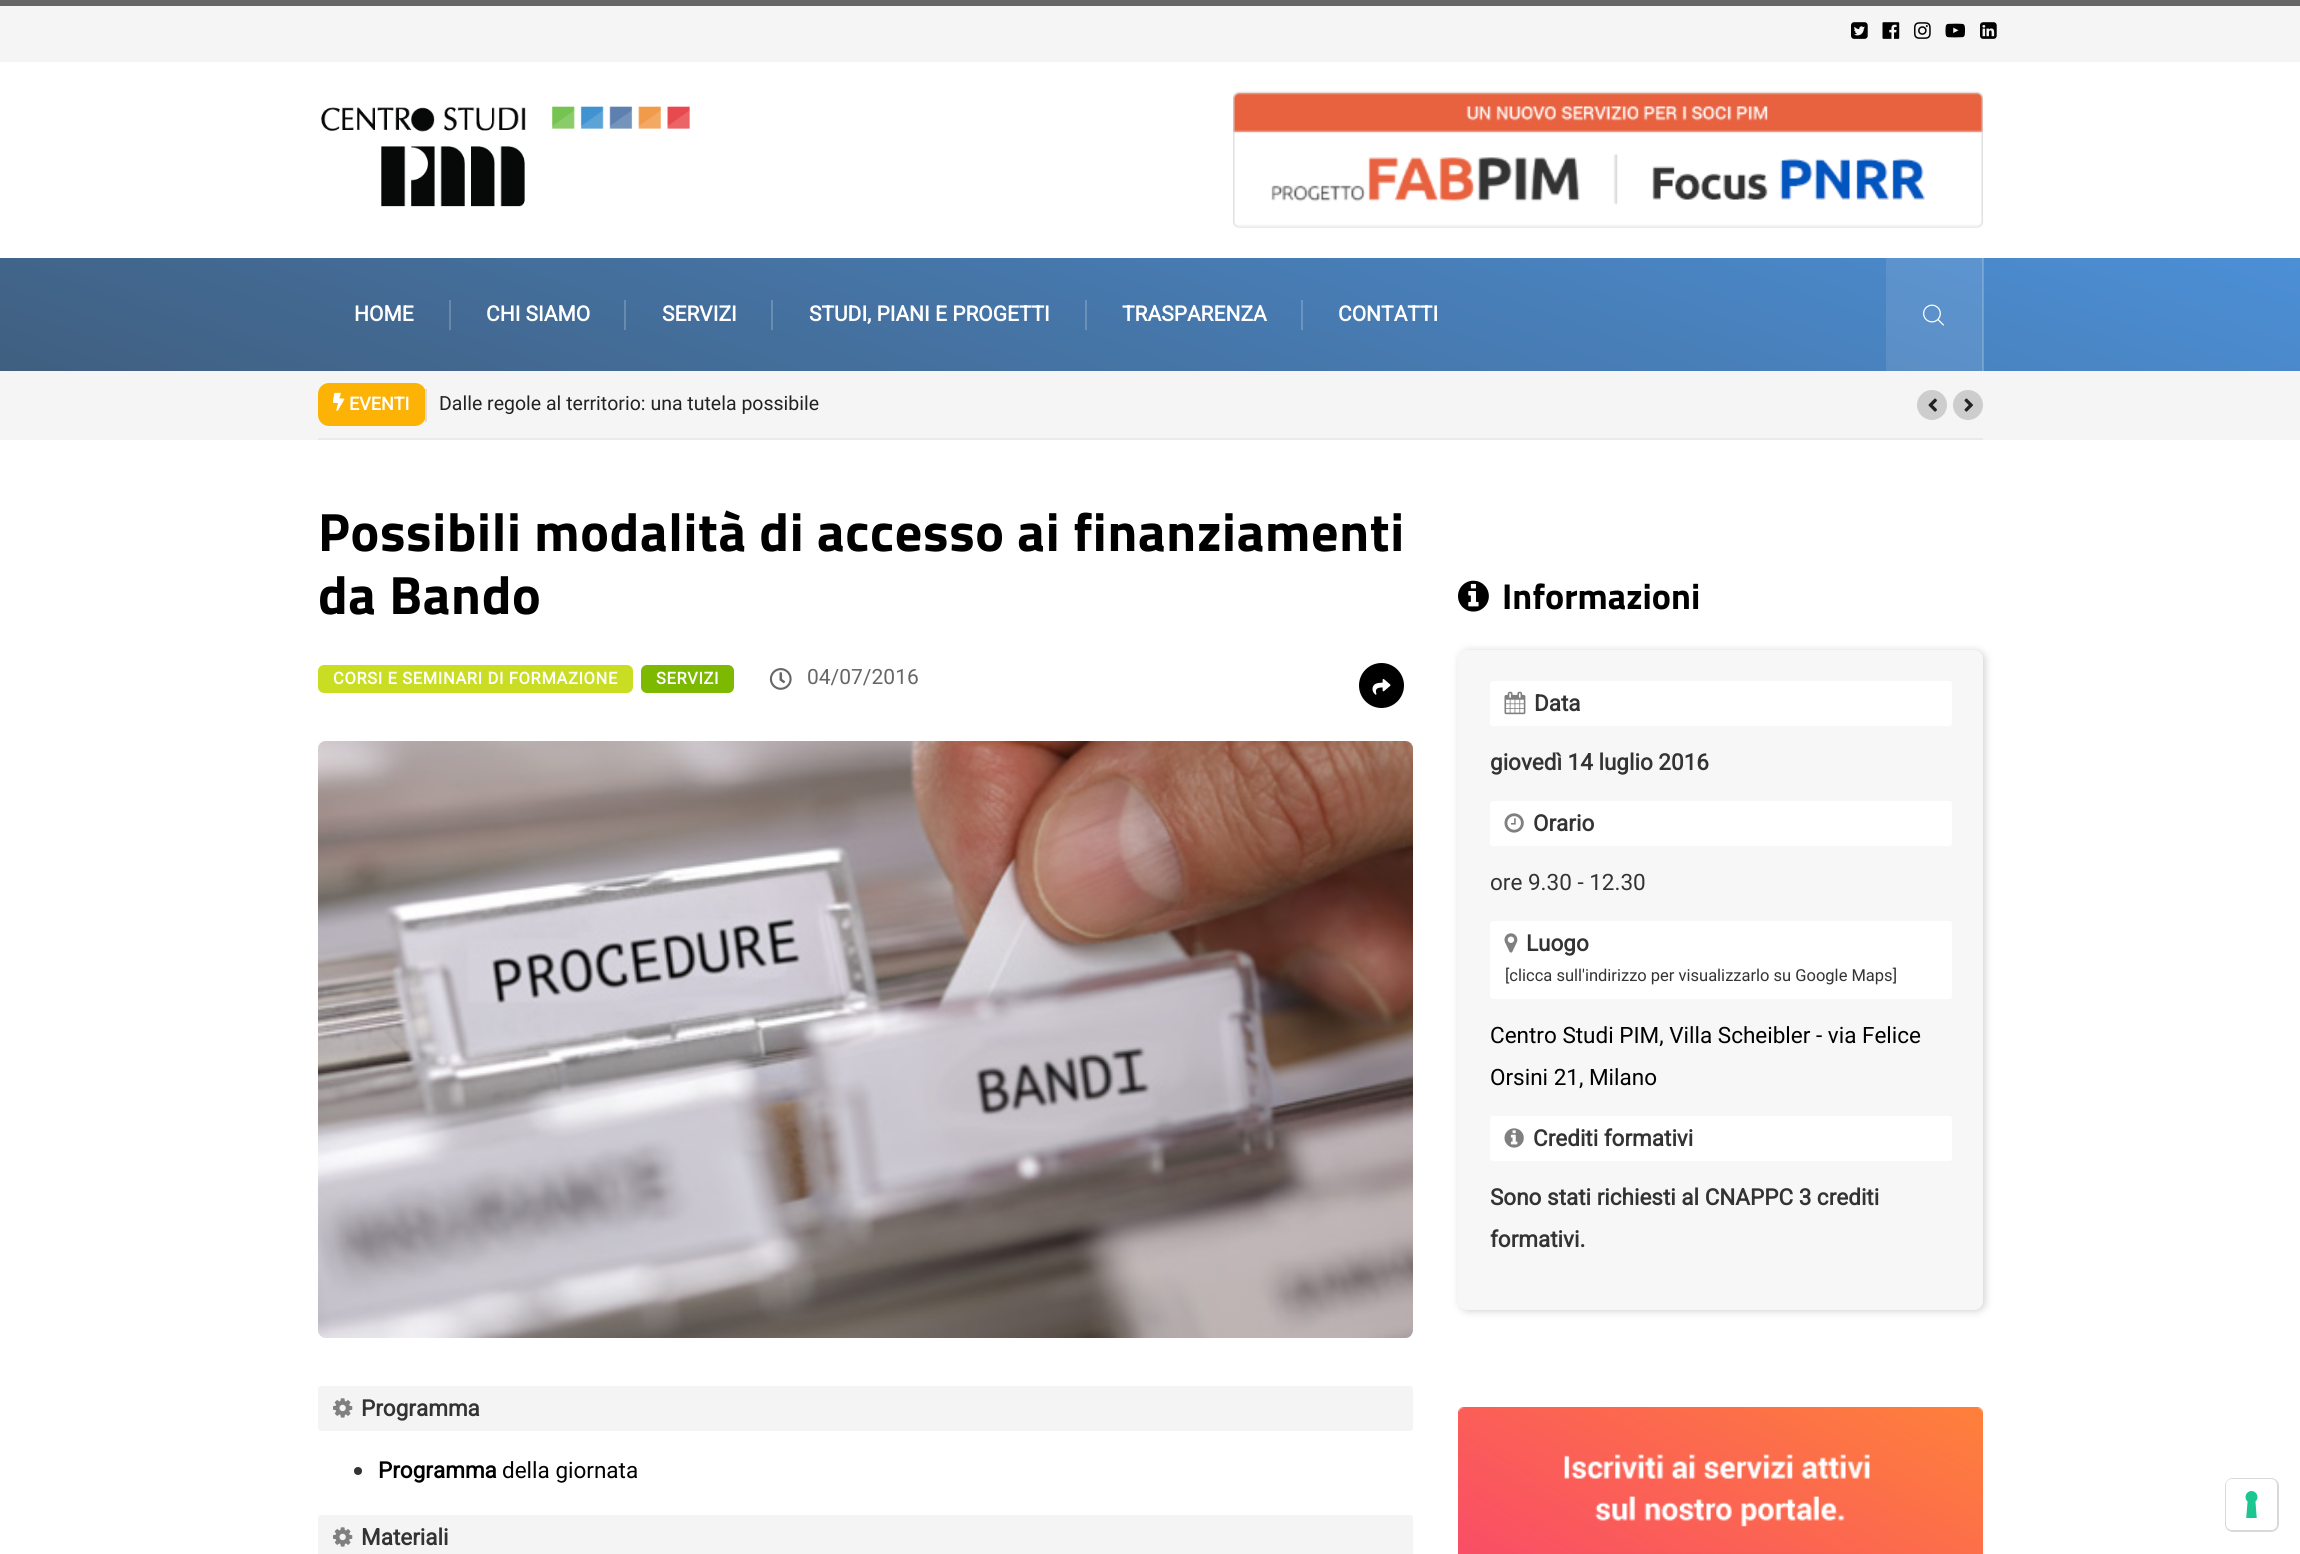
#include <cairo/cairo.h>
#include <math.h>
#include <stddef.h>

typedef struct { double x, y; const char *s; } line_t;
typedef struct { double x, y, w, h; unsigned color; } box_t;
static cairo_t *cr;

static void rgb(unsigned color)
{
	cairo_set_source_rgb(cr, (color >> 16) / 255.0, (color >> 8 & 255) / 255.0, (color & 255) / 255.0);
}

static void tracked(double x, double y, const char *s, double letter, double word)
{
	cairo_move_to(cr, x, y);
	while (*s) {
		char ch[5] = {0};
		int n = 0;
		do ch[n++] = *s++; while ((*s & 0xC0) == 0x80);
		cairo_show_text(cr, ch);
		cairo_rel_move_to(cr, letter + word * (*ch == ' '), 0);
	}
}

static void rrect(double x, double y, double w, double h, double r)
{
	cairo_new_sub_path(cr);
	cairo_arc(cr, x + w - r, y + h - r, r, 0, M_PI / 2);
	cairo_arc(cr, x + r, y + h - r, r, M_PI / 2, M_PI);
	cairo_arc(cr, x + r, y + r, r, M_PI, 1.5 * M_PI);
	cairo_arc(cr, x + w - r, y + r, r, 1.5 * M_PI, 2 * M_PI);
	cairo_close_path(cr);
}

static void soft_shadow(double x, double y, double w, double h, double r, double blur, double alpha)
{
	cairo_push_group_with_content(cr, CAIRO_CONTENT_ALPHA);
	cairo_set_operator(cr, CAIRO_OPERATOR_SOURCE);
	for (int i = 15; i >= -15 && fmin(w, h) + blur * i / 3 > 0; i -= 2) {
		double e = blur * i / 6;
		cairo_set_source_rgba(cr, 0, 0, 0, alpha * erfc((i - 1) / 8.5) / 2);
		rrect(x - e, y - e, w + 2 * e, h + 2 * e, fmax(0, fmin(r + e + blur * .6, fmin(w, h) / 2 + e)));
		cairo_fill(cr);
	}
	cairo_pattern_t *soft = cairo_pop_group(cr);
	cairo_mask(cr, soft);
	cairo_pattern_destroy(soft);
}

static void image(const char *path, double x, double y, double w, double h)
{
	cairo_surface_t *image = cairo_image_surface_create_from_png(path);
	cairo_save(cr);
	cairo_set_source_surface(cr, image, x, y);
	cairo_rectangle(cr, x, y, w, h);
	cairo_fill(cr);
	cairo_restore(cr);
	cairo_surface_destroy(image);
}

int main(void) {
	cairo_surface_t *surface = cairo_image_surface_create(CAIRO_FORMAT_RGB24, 2300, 1554);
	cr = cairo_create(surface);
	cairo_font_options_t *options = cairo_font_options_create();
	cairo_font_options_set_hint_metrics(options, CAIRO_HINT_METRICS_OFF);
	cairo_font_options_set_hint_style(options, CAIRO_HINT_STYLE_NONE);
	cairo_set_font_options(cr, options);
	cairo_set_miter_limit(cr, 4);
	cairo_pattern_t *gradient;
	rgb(0xffffff);
	cairo_paint(cr);
	rgb(0x676666);
	cairo_rectangle(cr, 0, 0, 2300, 6);
	cairo_fill(cr);
	rgb(0xf5f5f5);
	cairo_rectangle(cr, 0, 6, 2300, 56);
	cairo_fill(cr);
	image("img/1.png", 1851, 22, 17, 17);
	image("img/2.png", 1882, 22, 18, 17);
	image("img/3.png", 1914, 22, 17, 17);
	image("img/4.png", 1945, 23, 20, 15);
	image("img/5.png", 1980, 22, 17, 17);
	image("img/6.png", 321, 106, 369, 101);
	image("img/7.png", 1233, 91, 750, 137);
	gradient = cairo_pattern_create_linear(998, 734, 1303, -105);
	cairo_pattern_add_color_stop_rgba(gradient, 0, 0.251, 0.373, 0.502, 1);
	cairo_pattern_add_color_stop_rgba(gradient, 1, 0.298, 0.561, 0.839, 1);
	cairo_set_source(cr, gradient);
	cairo_pattern_destroy(gradient);
	cairo_rectangle(cr, 0, 258, 2300, 113);
	cairo_fill(cr);
	gradient = cairo_pattern_create_linear(998, 734, 1303, -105);
	cairo_pattern_add_color_stop_rgba(gradient, 0, 0.4, 0.498, 0.6, 1);
	cairo_pattern_add_color_stop_rgba(gradient, 1, 0.439, 0.647, 0.871, 1);
	cairo_set_source(cr, gradient);
	cairo_pattern_destroy(gradient);
	cairo_rectangle(cr, 771, 300, 2, 30);
	cairo_fill(cr);
	cairo_rectangle(cr, 624, 300, 2, 30);
	cairo_fill(cr);
	cairo_rectangle(cr, 1983, 258, 1, 113);
	cairo_fill(cr);
	gradient = cairo_pattern_create_linear(998, 734, 1303, -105);
	cairo_pattern_add_color_stop_rgba(gradient, 0, 0.325, 0.435, 0.553, 1);
	cairo_pattern_add_color_stop_rgba(gradient, 1, 0.369, 0.604, 0.855, 1);
	cairo_set_source(cr, gradient);
	cairo_pattern_destroy(gradient);
	cairo_rectangle(cr, 1886, 258, 96, 113);
	cairo_fill(cr);
	gradient = cairo_pattern_create_linear(998, 734, 1303, -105);
	cairo_pattern_add_color_stop_rgba(gradient, 0, 0.459, 0.549, 0.643, 1);
	cairo_pattern_add_color_stop_rgba(gradient, 1, 0.494, 0.682, 0.882, 1);
	cairo_set_source(cr, gradient);
	cairo_pattern_destroy(gradient);
	cairo_rectangle(cr, 1982, 258, 1, 113);
	cairo_fill(cr);
	{
		static const box_t items[] = {
			{449, 300, 2, 30, 0x6988a9},
			{1085, 300, 2, 30, 0x6b91ba},
			{1301, 300, 2, 30, 0x6c94c0},
		};
		for (size_t i = 0; i < sizeof items / sizeof *items; i++) {
			rgb(items[i].color);
			cairo_rectangle(cr, items[i].x, items[i].y, items[i].w, items[i].h);
			cairo_fill(cr);
		}
	}
	image("img/8.png", 1923, 304, 21, 22);
	rgb(0xf5f5f5);
	cairo_rectangle(cr, 0, 371, 2300, 69);
	cairo_fill(cr);
	rgb(0xeaeaea);
	cairo_rectangle(cr, 318, 438, 1665, 2);
	cairo_fill(cr);
	rgb(0xfdb305);
	rrect(318, 383, 108, 43, 11);
	cairo_fill(cr);
	rgb(0xdedbdb);
	cairo_rectangle(cr, 425, 389, 2, 33);
	cairo_fill(cr);
	image("img/9.png", 333, 392, 12, 19);
	rgb(0xcdcdcd);
	cairo_arc(cr, 1932, 405, 15, 0, 2 * M_PI);
	cairo_fill(cr);
	image("img/10.png", 1928, 398, 9, 14);
	cairo_arc(cr, 1968, 405, 15, 0, 2 * M_PI);
	cairo_fill(cr);
	image("img/11.png", 1964, 398, 9, 14);
	rgb(0xc9de23);
	rrect(318, 665, 315, 28, 6);
	cairo_fill(cr);
	rgb(0x7db900);
	rrect(641, 665, 93, 28, 6);
	cairo_fill(cr);
	image("img/12.png", 769, 668, 23, 22);
	rgb(0x000000);
	cairo_arc(cr, 1381.5, 685.5, 22.5, 0, 2 * M_PI);
	cairo_fill(cr);
	image("img/13.png", 1372, 679, 19, 16);
	image("img/14.png", 318, 741, 1095, 597);
	rgb(0xf4f4f4);
	rrect(318, 1386, 1095, 45, 3);
	cairo_fill(cr);
	image("img/15.png", 333, 1398, 20, 20);
	rgb(0x333333);
	cairo_arc(cr, 358, 1471, 4, 0, 2 * M_PI);
	cairo_fill(cr);
	rgb(0xf4f4f4);
	rrect(318, 1515, 1095, 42, 3);
	cairo_fill(cr);
	image("img/15.png", 333, 1527, 20, 20);
	image("img/16.png", 1458, 580, 31, 32);
	rgb(0xd0d0d0);
	soft_shadow(1460, 651, 525, 660, 9, 4, 1);
	rgb(0xf7f7f7);
	rrect(1458, 650, 525, 660, 9);
	cairo_fill(cr);
	rgb(0xffffff);
	rrect(1490, 681, 462, 45, 3);
	cairo_fill(cr);
	image("img/17.png", 1504, 691, 22, 24);
	rrect(1490, 801, 462, 45, 3);
	cairo_fill(cr);
	image("img/18.png", 1504, 813, 20, 20);
	rrect(1490, 921, 462, 78, 3);
	cairo_fill(cr);
	image("img/19.png", 1504, 933, 14, 20);
	rrect(1490, 1116, 462, 45, 3);
	cairo_fill(cr);
	image("img/20.png", 1504, 1128, 20, 20);
	image("img/21.png", 1458, 1407, 525, 147);
	rrect(2226, 1479, 52, 52, 7);
	rgb(0xd9d9d9);
	cairo_stroke(cr);
	rgb(0xffffff);
	rrect(2226, 1479, 51, 51, 6);
	cairo_fill(cr);
	image("img/22.png", 2245, 1491, 13, 27);
	cairo_select_font_face(cr, "Roboto", CAIRO_FONT_SLANT_NORMAL, CAIRO_FONT_WEIGHT_BOLD);
	cairo_set_font_size(cr, 21);
	{
		static const line_t items[] = {
			{354, 321, "HOME"},
			{486, 321, "CHI SIAMO"},
			{662, 321, "SERVIZI"},
			{809, 321, "STUDI, PIANI E PROGETTI"},
			{1122, 321, "TRASPARENZA"},
			{1338, 321, "CONTATTI"},
		};
		for (size_t i = 0; i < sizeof items / sizeof *items; i++) {
			cairo_move_to(cr, items[i].x, items[i].y);
			cairo_show_text(cr, items[i].s);
		}
	}
	cairo_set_font_size(cr, 18);
	cairo_move_to(cr, 349, 410);
	cairo_show_text(cr, "EVENTI");
	cairo_select_font_face(cr, "Roboto", CAIRO_FONT_SLANT_NORMAL, CAIRO_FONT_WEIGHT_NORMAL);
	cairo_set_font_size(cr, 19.5);
	rgb(0x222222);
	cairo_move_to(cr, 439, 410);
	cairo_show_text(cr, "Dalle regole al territorio: una tutela possibile");
	cairo_select_font_face(cr, "Titillium Web", CAIRO_FONT_SLANT_NORMAL, CAIRO_FONT_WEIGHT_BOLD);
	cairo_set_font_size(cr, 54);
	rgb(0x000000);
	tracked(318, 551, "Possibili modalità di accesso ai finanziamenti", 0.7, 0);
	tracked(318, 614, "da Bando", 0.7, 0);
	cairo_select_font_face(cr, "Roboto", CAIRO_FONT_SLANT_NORMAL, CAIRO_FONT_WEIGHT_BOLD);
	cairo_set_font_size(cr, 16.5);
	rgb(0xffffff);
	tracked(333, 684, "CORSI E SEMINARI DI FORMAZIONE", 0.65, 0);
	tracked(656, 684, "SERVIZI", 0.65, 0);
	cairo_select_font_face(cr, "Roboto", CAIRO_FONT_SLANT_NORMAL, CAIRO_FONT_WEIGHT_NORMAL);
	cairo_set_font_size(cr, 21);
	rgb(0x666666);
	cairo_move_to(cr, 807, 684);
	cairo_show_text(cr, "04/07/2016");
	cairo_select_font_face(cr, "Roboto", CAIRO_FONT_SLANT_NORMAL, CAIRO_FONT_WEIGHT_BOLD);
	cairo_set_font_size(cr, 22.5);
	rgb(0x333333);
	cairo_move_to(cr, 361, 1416);
	cairo_show_text(cr, "Programma");
	rgb(0x000000);
	cairo_move_to(cr, 378, 1478);
	cairo_show_text(cr, "Programma");
	cairo_select_font_face(cr, "Roboto", CAIRO_FONT_SLANT_NORMAL, CAIRO_FONT_WEIGHT_NORMAL);
	cairo_move_to(cr, 502, 1478);
	cairo_show_text(cr, "della giornata");
	cairo_select_font_face(cr, "Roboto", CAIRO_FONT_SLANT_NORMAL, CAIRO_FONT_WEIGHT_BOLD);
	rgb(0x333333);
	cairo_move_to(cr, 361, 1545);
	cairo_show_text(cr, "Materiali");
	cairo_select_font_face(cr, "Titillium Web", CAIRO_FONT_SLANT_NORMAL, CAIRO_FONT_WEIGHT_BOLD);
	cairo_set_font_size(cr, 36);
	rgb(0x000000);
	cairo_move_to(cr, 1502, 609);
	cairo_show_text(cr, "Informazioni");
	cairo_select_font_face(cr, "Roboto", CAIRO_FONT_SLANT_NORMAL, CAIRO_FONT_WEIGHT_BOLD);
	cairo_set_font_size(cr, 22.5);
	rgb(0x333333);
	{
		static const line_t items[] = {
			{1534, 711, "Data"},
			{1490, 770, "giovedì 14 luglio 2016"},
			{1533, 831, "Orario"},
		};
		for (size_t i = 0; i < sizeof items / sizeof *items; i++) {
			cairo_move_to(cr, items[i].x, items[i].y);
			cairo_show_text(cr, items[i].s);
		}
	}
	cairo_select_font_face(cr, "Roboto", CAIRO_FONT_SLANT_NORMAL, CAIRO_FONT_WEIGHT_NORMAL);
	cairo_move_to(cr, 1490, 890);
	cairo_show_text(cr, "ore 9.30 - 12.30");
	cairo_select_font_face(cr, "Roboto", CAIRO_FONT_SLANT_NORMAL, CAIRO_FONT_WEIGHT_BOLD);
	cairo_move_to(cr, 1526, 951);
	cairo_show_text(cr, "Luogo");
	cairo_select_font_face(cr, "Roboto", CAIRO_FONT_SLANT_NORMAL, CAIRO_FONT_WEIGHT_NORMAL);
	cairo_set_font_size(cr, 16.5);
	cairo_move_to(cr, 1505, 981);
	cairo_show_text(cr, "[clicca sull'indirizzo per visualizzarlo su Google Maps]");
	cairo_set_font_size(cr, 22.5);
	rgb(0x000000);
	cairo_move_to(cr, 1490, 1043);
	cairo_show_text(cr, "Centro Studi PIM, Villa Scheibler - via Felice");
	cairo_move_to(cr, 1490, 1085);
	cairo_show_text(cr, "Orsini 21, Milano");
	cairo_select_font_face(cr, "Roboto", CAIRO_FONT_SLANT_NORMAL, CAIRO_FONT_WEIGHT_BOLD);
	rgb(0x333333);
	{
		static const line_t items[] = {
			{1533, 1146, "Crediti formativi"},
			{1490, 1205, "Sono stati richiesti al CNAPPC 3 crediti"},
			{1490, 1247, "formativi."},
		};
		for (size_t i = 0; i < sizeof items / sizeof *items; i++) {
			cairo_move_to(cr, items[i].x, items[i].y);
			cairo_show_text(cr, items[i].s);
		}
	}
	cairo_surface_write_to_png(surface, "page.png");
	cairo_font_options_destroy(options);
	cairo_destroy(cr);
	cairo_surface_destroy(surface);
	return 0;
}
